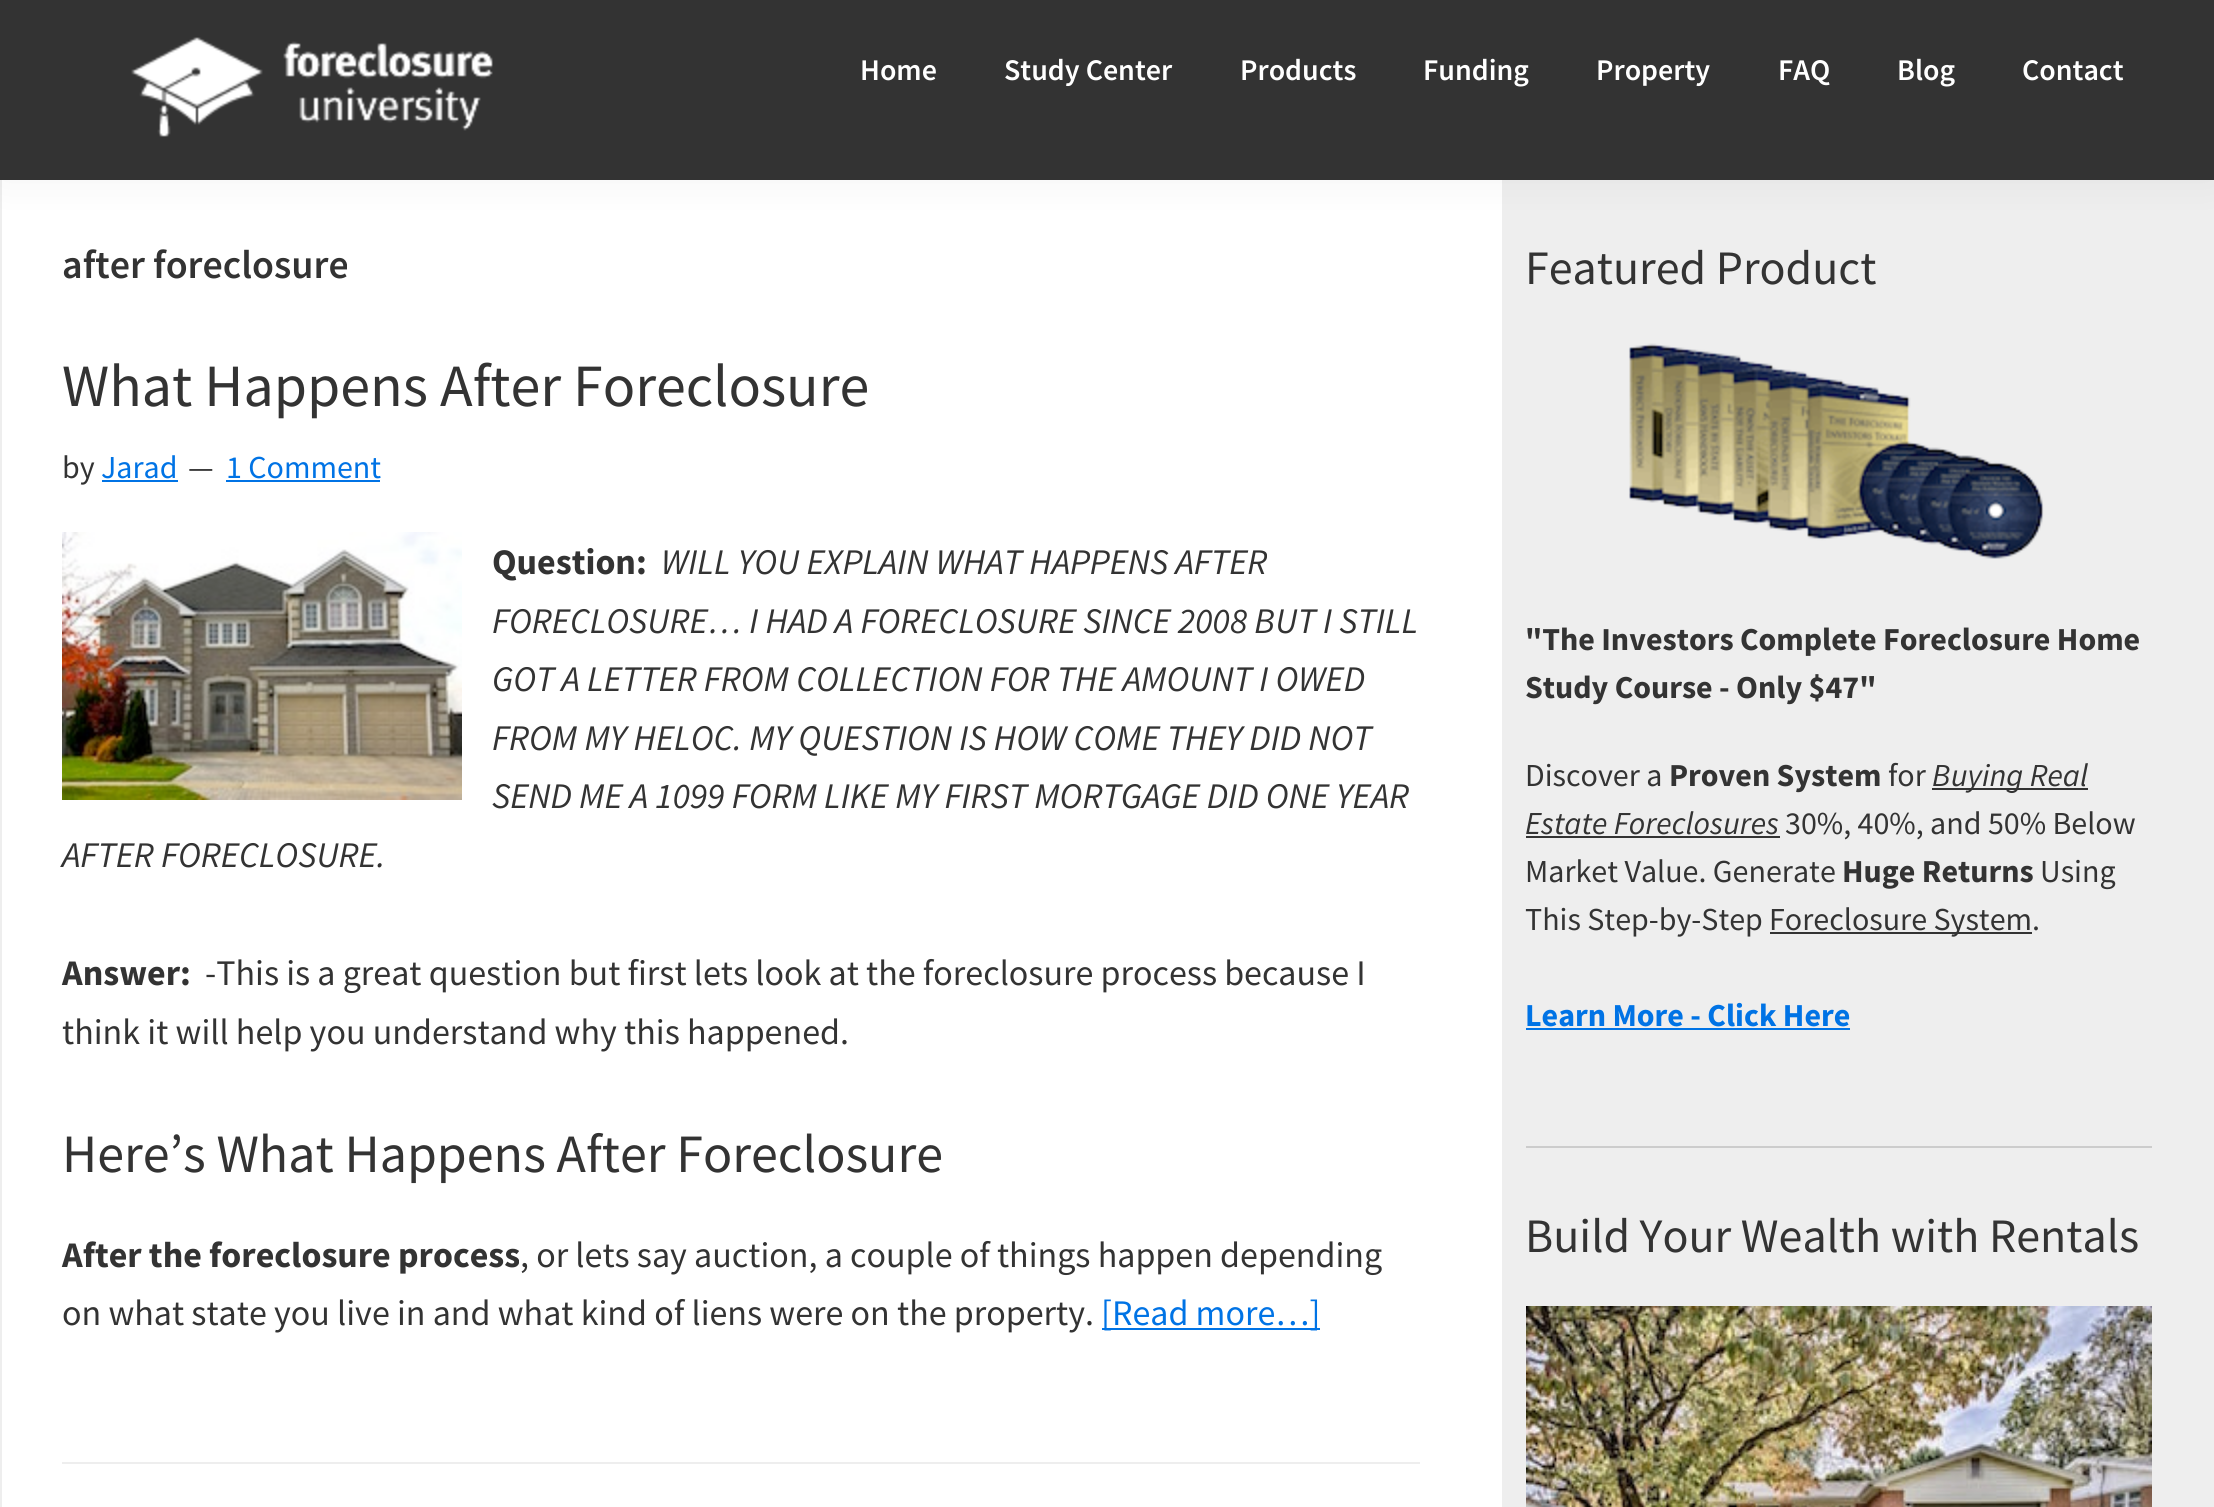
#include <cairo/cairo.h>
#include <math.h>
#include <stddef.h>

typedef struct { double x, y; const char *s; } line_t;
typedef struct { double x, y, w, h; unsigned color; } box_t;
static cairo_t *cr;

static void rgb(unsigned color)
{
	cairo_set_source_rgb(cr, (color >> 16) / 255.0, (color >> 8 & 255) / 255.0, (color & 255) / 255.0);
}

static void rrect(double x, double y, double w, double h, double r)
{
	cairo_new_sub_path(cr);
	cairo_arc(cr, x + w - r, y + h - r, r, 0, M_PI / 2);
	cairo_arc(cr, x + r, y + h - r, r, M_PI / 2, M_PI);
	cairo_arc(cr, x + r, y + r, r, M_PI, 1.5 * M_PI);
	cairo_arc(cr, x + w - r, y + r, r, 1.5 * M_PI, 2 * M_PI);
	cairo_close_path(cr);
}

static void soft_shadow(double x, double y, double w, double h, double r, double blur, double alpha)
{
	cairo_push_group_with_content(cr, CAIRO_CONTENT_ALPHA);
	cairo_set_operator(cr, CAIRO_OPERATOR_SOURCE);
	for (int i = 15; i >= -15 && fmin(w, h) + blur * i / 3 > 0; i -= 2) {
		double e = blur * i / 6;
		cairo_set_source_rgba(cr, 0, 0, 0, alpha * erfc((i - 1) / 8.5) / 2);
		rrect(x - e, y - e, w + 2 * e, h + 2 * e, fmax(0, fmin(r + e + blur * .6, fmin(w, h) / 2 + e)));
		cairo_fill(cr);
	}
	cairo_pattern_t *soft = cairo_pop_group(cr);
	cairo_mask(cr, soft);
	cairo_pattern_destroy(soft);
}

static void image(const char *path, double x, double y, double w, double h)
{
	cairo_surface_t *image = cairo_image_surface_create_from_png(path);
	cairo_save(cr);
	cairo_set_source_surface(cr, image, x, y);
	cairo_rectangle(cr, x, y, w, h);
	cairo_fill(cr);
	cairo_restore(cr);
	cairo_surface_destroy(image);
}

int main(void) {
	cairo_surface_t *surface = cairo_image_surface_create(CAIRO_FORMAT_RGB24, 2214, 1507);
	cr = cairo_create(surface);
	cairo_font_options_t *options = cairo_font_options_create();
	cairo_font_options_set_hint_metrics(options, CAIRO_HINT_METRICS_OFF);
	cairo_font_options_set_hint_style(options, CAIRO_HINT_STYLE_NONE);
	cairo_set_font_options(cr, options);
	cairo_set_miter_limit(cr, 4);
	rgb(0xffffff);
	cairo_paint(cr);
	rgb(0xeeeeee);
	cairo_rectangle(cr, 1502, 180, 712, 1327);
	cairo_fill(cr);
	cairo_rectangle(cr, 0, 180, 2, 1327);
	cairo_fill(cr);
	rgb(0x000000);
	soft_shadow(0, 0, 2214, 180, 0, 20, 0.05);
	rgb(0x333333);
	cairo_rectangle(cr, 0, 0, 2214, 180);
	cairo_fill(cr);
	image("img/1.png", 131, 37, 362, 100);
	rgb(0x0073e5);
	cairo_rectangle(cr, 102, 480, 76, 2);
	cairo_fill(cr);
	cairo_rectangle(cr, 226, 480, 154, 2);
	cairo_fill(cr);
	image("img/2.png", 62, 532, 400, 268);
	cairo_rectangle(cr, 1102, 1328, 218, 2);
	cairo_fill(cr);
	rgb(0xeeeeee);
	cairo_rectangle(cr, 62, 1462, 1358, 2);
	cairo_fill(cr);
	image("img/3.png", 1629, 343, 415, 216);
	{
		static const box_t items[] = {
			{1932, 788, 156, 2, 0x333333},
			{1526, 836, 254, 2, 0x333333},
			{1770, 932, 262, 2, 0x333333},
			{1526, 1028, 324, 2, 0x0073e5},
			{1526, 1146, 626, 2, 0xcccccc},
		};
		for (size_t i = 0; i < sizeof items / sizeof *items; i++) {
			rgb(items[i].color);
			cairo_rectangle(cr, items[i].x, items[i].y, items[i].w, items[i].h);
			cairo_fill(cr);
		}
	}
	image("img/4.png", 1526, 1306, 626, 201);
	cairo_select_font_face(cr, "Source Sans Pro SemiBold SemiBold", CAIRO_FONT_SLANT_NORMAL, CAIRO_FONT_WEIGHT_NORMAL);
	cairo_set_font_size(cr, 30);
	rgb(0xffffff);
	{
		static const line_t items[] = {
			{860, 80, "Home"},
			{1004, 80, "Study Center"},
			{1240, 80, "Products"},
			{1423, 80, "Funding"},
			{1596, 80, "Property"},
			{1778, 80, "FAQ"},
			{1897, 80, "Blog"},
			{2022, 80, "Contact"},
		};
		for (size_t i = 0; i < sizeof items / sizeof *items; i++) {
			cairo_move_to(cr, items[i].x, items[i].y);
			cairo_show_text(cr, items[i].s);
		}
	}
	cairo_set_font_size(cr, 40);
	rgb(0x333333);
	cairo_move_to(cr, 62, 278);
	cairo_show_text(cr, "after foreclosure");
	cairo_select_font_face(cr, "Source Sans Pro", CAIRO_FONT_SLANT_NORMAL, CAIRO_FONT_WEIGHT_NORMAL);
	cairo_set_font_size(cr, 60);
	cairo_move_to(cr, 62, 406);
	cairo_show_text(cr, "What Happens After Foreclosure");
	cairo_set_font_size(cr, 32);
	cairo_move_to(cr, 62, 478);
	cairo_show_text(cr, "by");
	rgb(0x0073e5);
	cairo_move_to(cr, 101, 478);
	cairo_show_text(cr, "Jarad");
	rgb(0x333333);
	cairo_move_to(cr, 188, 478);
	cairo_show_text(cr, "—");
	rgb(0x0073e5);
	cairo_move_to(cr, 226, 478);
	cairo_show_text(cr, "1 Comment");
	cairo_select_font_face(cr, "Source Sans Pro", CAIRO_FONT_SLANT_NORMAL, CAIRO_FONT_WEIGHT_BOLD);
	cairo_set_font_size(cr, 36);
	rgb(0x333333);
	cairo_move_to(cr, 492, 574);
	cairo_show_text(cr, "Question:");
	cairo_select_font_face(cr, "Source Sans Pro", CAIRO_FONT_SLANT_ITALIC, CAIRO_FONT_WEIGHT_NORMAL);
	{
		static const line_t items[] = {
			{661, 574, "WILL YOU EXPLAIN WHAT HAPPENS AFTER"},
			{492, 633, "FORECLOSURE… I HAD A FORECLOSURE SINCE 2008 BUT I STILL"},
			{492, 691, "GOT A LETTER FROM COLLECTION FOR THE AMOUNT I OWED"},
			{492, 750, "FROM MY HELOC. MY QUESTION IS HOW COME THEY DID NOT"},
			{492, 808, "SEND ME A 1099 FORM LIKE MY FIRST MORTGAGE DID ONE YEAR"},
			{62, 867, "AFTER FORECLOSURE."},
		};
		for (size_t i = 0; i < sizeof items / sizeof *items; i++) {
			cairo_move_to(cr, items[i].x, items[i].y);
			cairo_show_text(cr, items[i].s);
		}
	}
	cairo_select_font_face(cr, "Source Sans Pro", CAIRO_FONT_SLANT_NORMAL, CAIRO_FONT_WEIGHT_BOLD);
	cairo_move_to(cr, 62, 985);
	cairo_show_text(cr, "Answer:");
	cairo_select_font_face(cr, "Source Sans Pro", CAIRO_FONT_SLANT_NORMAL, CAIRO_FONT_WEIGHT_NORMAL);
	cairo_move_to(cr, 205, 985);
	cairo_show_text(cr, "-This is a great question but first lets look at the foreclosure process because I");
	cairo_move_to(cr, 62, 1044);
	cairo_show_text(cr, "think it will help you understand why this happened.");
	cairo_set_font_size(cr, 54);
	cairo_move_to(cr, 62, 1172);
	cairo_show_text(cr, "Here’s What Happens After Foreclosure");
	cairo_select_font_face(cr, "Source Sans Pro", CAIRO_FONT_SLANT_NORMAL, CAIRO_FONT_WEIGHT_BOLD);
	cairo_set_font_size(cr, 36);
	cairo_move_to(cr, 62, 1267);
	cairo_show_text(cr, "After the foreclosure process");
	cairo_select_font_face(cr, "Source Sans Pro", CAIRO_FONT_SLANT_NORMAL, CAIRO_FONT_WEIGHT_NORMAL);
	cairo_move_to(cr, 520, 1267);
	cairo_show_text(cr, ", or lets say auction, a couple of things happen depending");
	cairo_move_to(cr, 62, 1325);
	cairo_show_text(cr, "on what state you live in and what kind of liens were on the property.");
	rgb(0x0073e5);
	cairo_move_to(cr, 1101, 1325);
	cairo_show_text(cr, "[Read more…]");
	cairo_set_font_size(cr, 48);
	rgb(0x333333);
	cairo_move_to(cr, 1525, 284);
	cairo_show_text(cr, "Featured Product");
	cairo_select_font_face(cr, "Source Sans Pro", CAIRO_FONT_SLANT_NORMAL, CAIRO_FONT_WEIGHT_BOLD);
	cairo_set_font_size(cr, 32);
	cairo_move_to(cr, 1525, 650);
	cairo_show_text(cr, "\"The Investors Complete Foreclosure Home");
	cairo_move_to(cr, 1525, 698);
	cairo_show_text(cr, "Study Course - Only $47\"");
	cairo_select_font_face(cr, "Source Sans Pro", CAIRO_FONT_SLANT_NORMAL, CAIRO_FONT_WEIGHT_NORMAL);
	cairo_move_to(cr, 1525, 786);
	cairo_show_text(cr, "Discover a");
	cairo_select_font_face(cr, "Source Sans Pro", CAIRO_FONT_SLANT_NORMAL, CAIRO_FONT_WEIGHT_BOLD);
	cairo_move_to(cr, 1669, 786);
	cairo_show_text(cr, "Proven System");
	cairo_select_font_face(cr, "Source Sans Pro", CAIRO_FONT_SLANT_NORMAL, CAIRO_FONT_WEIGHT_NORMAL);
	cairo_move_to(cr, 1888, 786);
	cairo_show_text(cr, "for");
	cairo_select_font_face(cr, "Source Sans Pro", CAIRO_FONT_SLANT_ITALIC, CAIRO_FONT_WEIGHT_NORMAL);
	cairo_move_to(cr, 1932, 786);
	cairo_show_text(cr, "Buying Real");
	cairo_move_to(cr, 1525, 834);
	cairo_show_text(cr, "Estate Foreclosures");
	cairo_select_font_face(cr, "Source Sans Pro", CAIRO_FONT_SLANT_NORMAL, CAIRO_FONT_WEIGHT_NORMAL);
	cairo_move_to(cr, 1785, 834);
	cairo_show_text(cr, "30%, 40%, and 50% Below");
	cairo_move_to(cr, 1525, 882);
	cairo_show_text(cr, "Market Value. Generate");
	cairo_select_font_face(cr, "Source Sans Pro", CAIRO_FONT_SLANT_NORMAL, CAIRO_FONT_WEIGHT_BOLD);
	cairo_move_to(cr, 1842, 882);
	cairo_show_text(cr, "Huge Returns");
	cairo_select_font_face(cr, "Source Sans Pro", CAIRO_FONT_SLANT_NORMAL, CAIRO_FONT_WEIGHT_NORMAL);
	{
		static const line_t items[] = {
			{2040, 882, "Using"},
			{1525, 930, "This Step-by-Step"},
			{1769, 930, "Foreclosure System."},
		};
		for (size_t i = 0; i < sizeof items / sizeof *items; i++) {
			cairo_move_to(cr, items[i].x, items[i].y);
			cairo_show_text(cr, items[i].s);
		}
	}
	cairo_select_font_face(cr, "Source Sans Pro", CAIRO_FONT_SLANT_NORMAL, CAIRO_FONT_WEIGHT_BOLD);
	rgb(0x0073e5);
	cairo_move_to(cr, 1525, 1026);
	cairo_show_text(cr, "Learn More - Click Here");
	cairo_select_font_face(cr, "Source Sans Pro", CAIRO_FONT_SLANT_NORMAL, CAIRO_FONT_WEIGHT_NORMAL);
	cairo_set_font_size(cr, 48);
	rgb(0x333333);
	cairo_move_to(cr, 1525, 1252);
	cairo_show_text(cr, "Build Your Wealth with Rentals");
	cairo_surface_write_to_png(surface, "page.png");
	cairo_font_options_destroy(options);
	cairo_destroy(cr);
	cairo_surface_destroy(surface);
	return 0;
}
